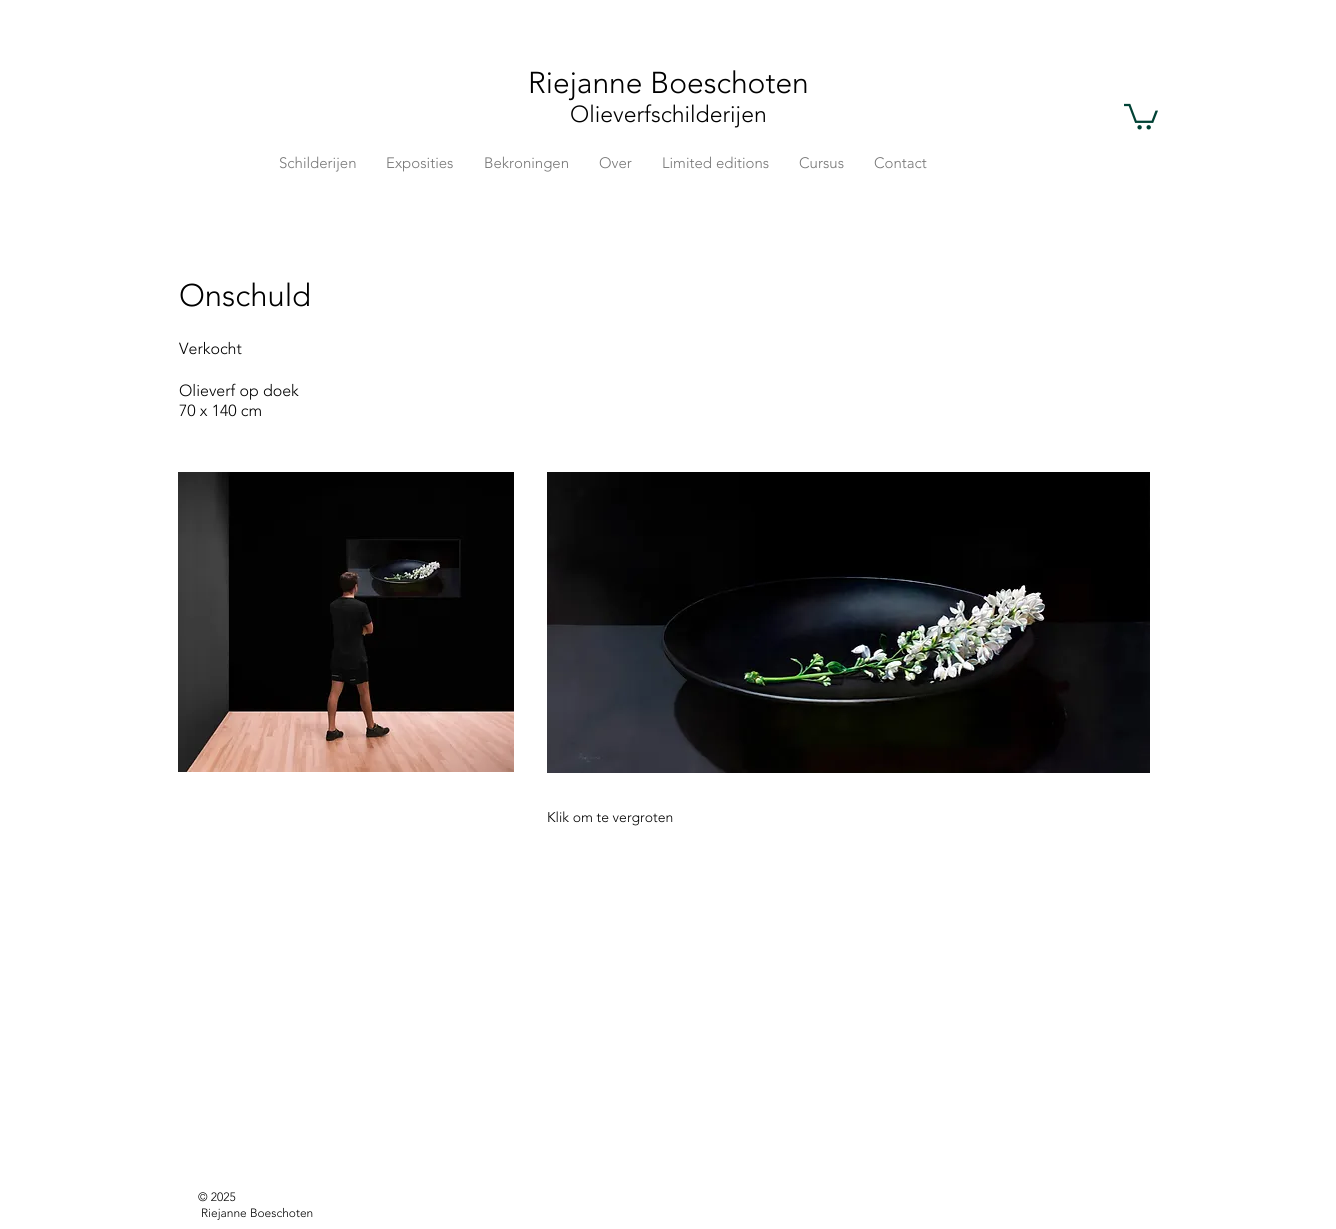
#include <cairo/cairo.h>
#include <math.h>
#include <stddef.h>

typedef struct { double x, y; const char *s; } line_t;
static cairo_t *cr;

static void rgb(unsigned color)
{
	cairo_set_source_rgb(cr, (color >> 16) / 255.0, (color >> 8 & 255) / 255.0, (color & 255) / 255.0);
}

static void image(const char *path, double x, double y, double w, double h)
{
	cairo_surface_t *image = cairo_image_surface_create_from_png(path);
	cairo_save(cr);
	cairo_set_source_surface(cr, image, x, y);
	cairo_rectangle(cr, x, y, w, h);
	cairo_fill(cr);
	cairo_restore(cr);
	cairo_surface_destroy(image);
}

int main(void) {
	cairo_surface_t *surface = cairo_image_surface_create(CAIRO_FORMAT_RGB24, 1336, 1229);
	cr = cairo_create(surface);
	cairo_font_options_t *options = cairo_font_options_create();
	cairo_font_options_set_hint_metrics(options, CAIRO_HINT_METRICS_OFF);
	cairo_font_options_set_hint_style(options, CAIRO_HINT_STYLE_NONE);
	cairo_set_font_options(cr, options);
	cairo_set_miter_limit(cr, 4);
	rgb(0xffffff);
	cairo_paint(cr);
	image("img/1.png", 1124, 103, 34, 27);
	image("img/2.png", 178, 472, 336, 300);
	image("img/3.png", 547, 472, 603, 301);
	cairo_select_font_face(cr, "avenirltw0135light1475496 Light", CAIRO_FONT_SLANT_NORMAL, CAIRO_FONT_WEIGHT_NORMAL);
	cairo_set_font_size(cr, 30);
	rgb(0x000000);
	cairo_move_to(cr, 528, 93);
	cairo_show_text(cr, "Riejanne Boeschoten");
	cairo_set_font_size(cr, 23);
	cairo_move_to(cr, 570, 122);
	cairo_show_text(cr, "Olieverfschilderijen");
	cairo_set_font_size(cr, 15);
	rgb(0x757575);
	{
		static const line_t items[] = {
			{279, 168, "Schilderijen"},
			{386, 168, "Exposities"},
			{484, 168, "Bekroningen"},
			{599, 168, "Over"},
			{662, 168, "Limited editions"},
			{799, 168, "Cursus"},
			{874, 168, "Contact"},
		};
		for (size_t i = 0; i < sizeof items / sizeof *items; i++) {
			cairo_move_to(cr, items[i].x, items[i].y);
			cairo_show_text(cr, items[i].s);
		}
	}
	cairo_set_font_size(cr, 31);
	rgb(0x000000);
	cairo_move_to(cr, 179, 306);
	cairo_show_text(cr, "Onschuld");
	cairo_set_font_size(cr, 16);
	{
		static const line_t items[] = {
			{179, 354, "Verkocht"},
			{179, 396, "Olieverf op doek"},
			{179, 416, "70 x 140 cm"},
		};
		for (size_t i = 0; i < sizeof items / sizeof *items; i++) {
			cairo_move_to(cr, items[i].x, items[i].y);
			cairo_show_text(cr, items[i].s);
		}
	}
	cairo_set_font_size(cr, 14);
	cairo_move_to(cr, 547, 822);
	cairo_show_text(cr, "Klik om te vergroten");
	cairo_set_font_size(cr, 12);
	cairo_move_to(cr, 198, 1201);
	cairo_show_text(cr, "© 2025");
	cairo_move_to(cr, 201, 1217);
	cairo_show_text(cr, "Riejanne Boeschoten");
	cairo_surface_write_to_png(surface, "page.png");
	cairo_font_options_destroy(options);
	cairo_destroy(cr);
	cairo_surface_destroy(surface);
	return 0;
}
